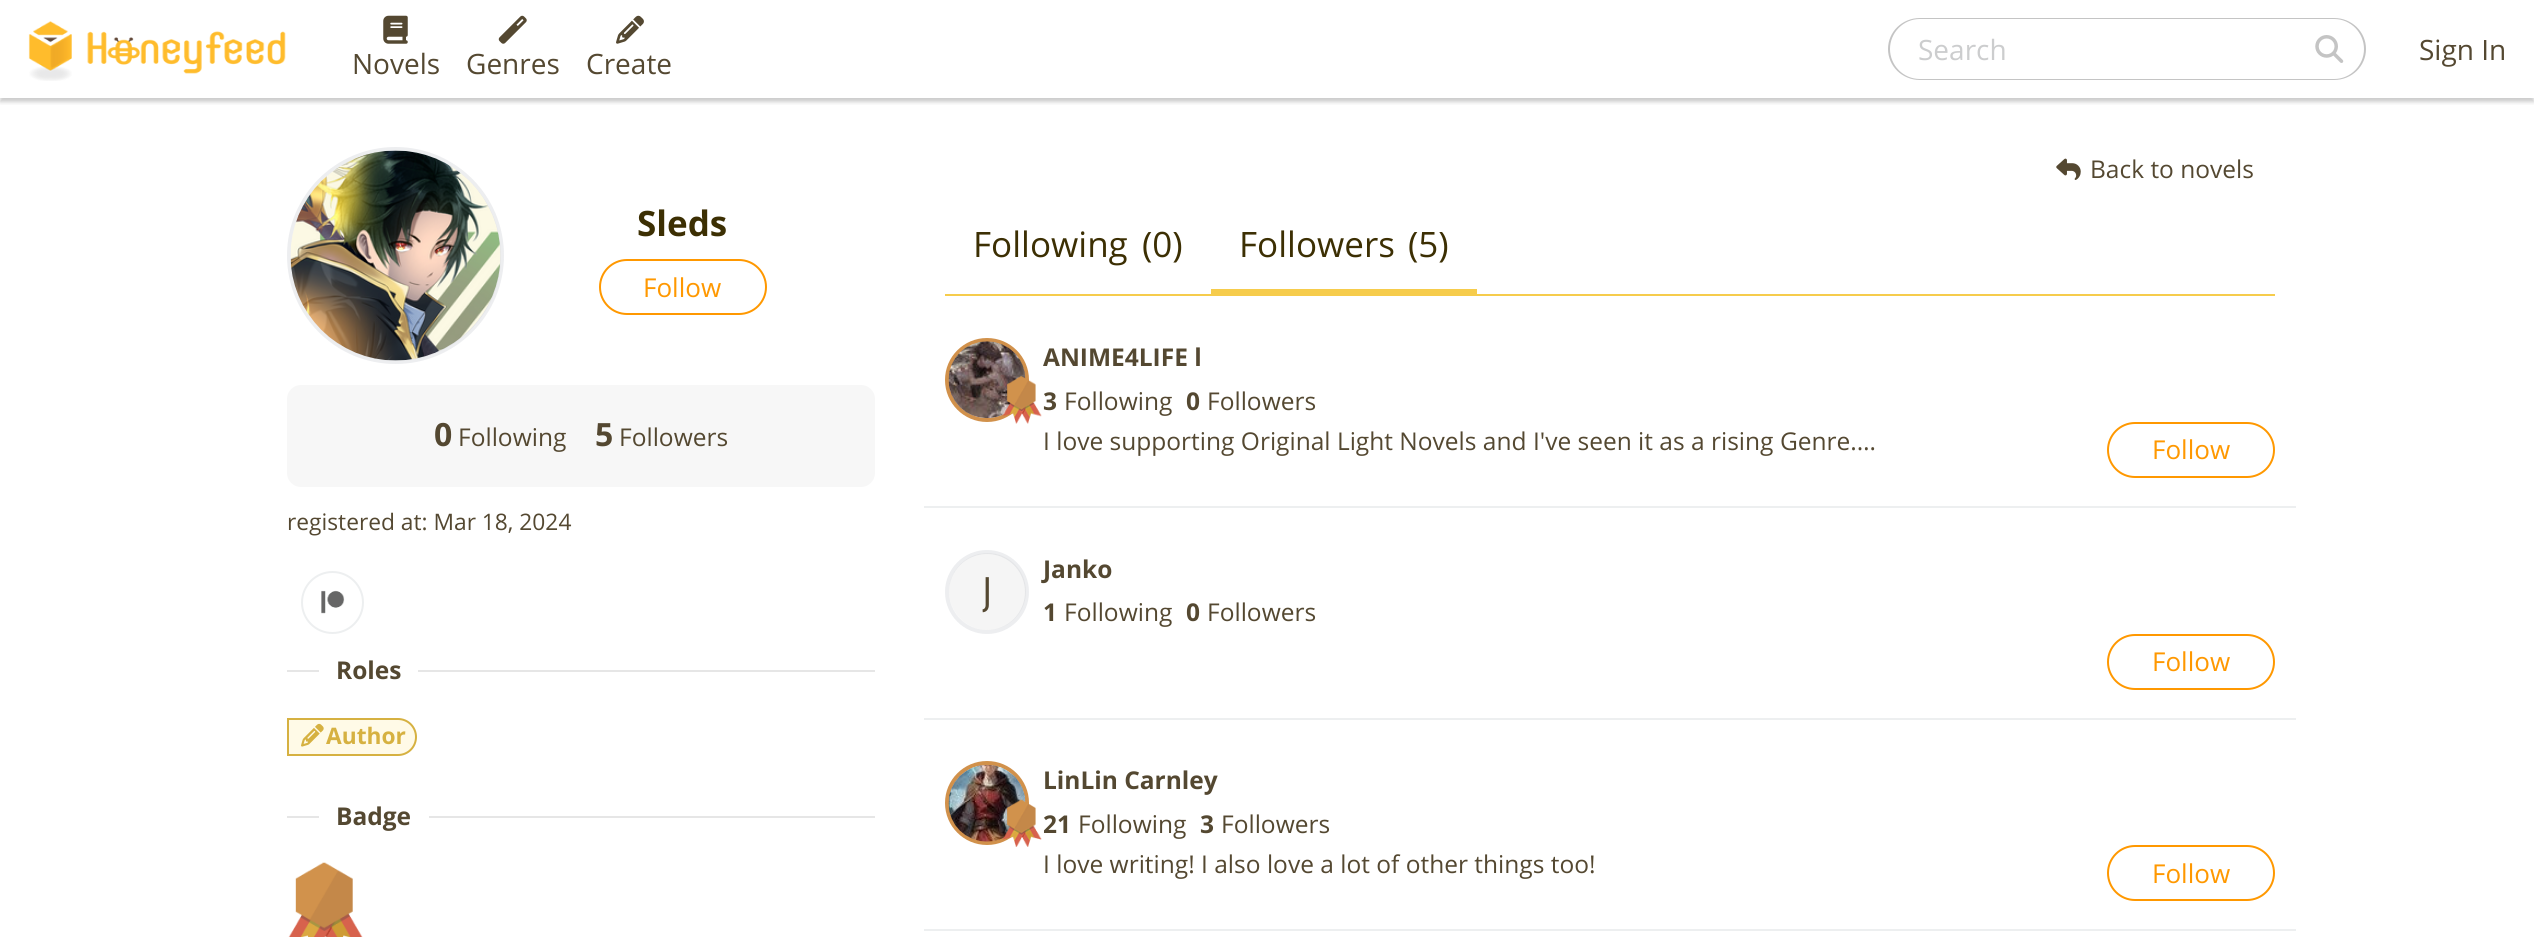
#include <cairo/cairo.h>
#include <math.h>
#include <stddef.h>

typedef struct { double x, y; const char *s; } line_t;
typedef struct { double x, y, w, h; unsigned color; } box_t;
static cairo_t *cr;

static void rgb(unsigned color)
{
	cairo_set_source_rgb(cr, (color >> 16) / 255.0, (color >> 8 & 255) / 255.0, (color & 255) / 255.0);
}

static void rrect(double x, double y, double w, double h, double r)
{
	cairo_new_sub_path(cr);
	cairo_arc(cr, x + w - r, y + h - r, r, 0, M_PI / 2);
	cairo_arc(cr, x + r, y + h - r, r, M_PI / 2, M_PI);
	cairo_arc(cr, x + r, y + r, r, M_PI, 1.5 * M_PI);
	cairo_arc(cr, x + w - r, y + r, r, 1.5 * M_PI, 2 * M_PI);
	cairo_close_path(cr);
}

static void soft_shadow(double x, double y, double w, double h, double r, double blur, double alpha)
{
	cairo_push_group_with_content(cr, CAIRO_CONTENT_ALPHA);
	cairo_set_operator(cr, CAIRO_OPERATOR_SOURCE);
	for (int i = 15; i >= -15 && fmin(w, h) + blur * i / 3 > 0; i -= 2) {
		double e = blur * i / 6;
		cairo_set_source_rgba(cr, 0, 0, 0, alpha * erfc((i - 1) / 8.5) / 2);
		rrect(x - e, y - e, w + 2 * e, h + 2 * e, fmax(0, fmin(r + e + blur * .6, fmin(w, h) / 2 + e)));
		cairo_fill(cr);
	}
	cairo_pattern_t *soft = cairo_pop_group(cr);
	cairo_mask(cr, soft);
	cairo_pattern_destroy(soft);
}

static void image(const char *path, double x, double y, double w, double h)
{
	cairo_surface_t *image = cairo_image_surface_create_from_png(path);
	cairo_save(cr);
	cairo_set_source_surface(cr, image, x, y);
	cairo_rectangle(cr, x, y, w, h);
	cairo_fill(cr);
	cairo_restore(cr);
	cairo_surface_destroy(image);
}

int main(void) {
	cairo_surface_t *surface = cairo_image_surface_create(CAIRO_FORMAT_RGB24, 2534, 937);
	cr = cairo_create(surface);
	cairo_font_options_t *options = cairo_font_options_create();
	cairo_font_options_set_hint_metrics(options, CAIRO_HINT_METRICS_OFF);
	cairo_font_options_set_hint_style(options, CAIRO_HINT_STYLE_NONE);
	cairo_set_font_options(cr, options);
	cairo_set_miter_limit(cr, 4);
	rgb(0xffffff);
	cairo_paint(cr);
	cairo_save(cr);
	cairo_rectangle(cr, 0, 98, 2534, 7);
	cairo_clip(cr);
	rgb(0x000000);
	soft_shadow(0, 4, 2534, 98, 0, 2, 0.2);
	cairo_restore(cr);
	image("img/1.png", 28, 21, 44, 60);
	image("img/2.png", 87, 31, 199, 43);
	image("img/3.png", 383, 15, 25, 29);
	image("img/4.png", 498, 15, 29, 29);
	image("img/5.png", 616, 15, 28, 29);
	rgb(0xc4c4c4);
	cairo_set_fill_rule(cr, CAIRO_FILL_RULE_EVEN_ODD);
	cairo_new_path(cr);
	cairo_move_to(cr, 1920, 18);
	cairo_line_to(cr, 2296, 18);
	cairo_line_to(cr, 2296, 80);
	cairo_line_to(cr, 1920, 80);
	cairo_curve_to(cr, 1902, 80, 1888, 66, 1888, 49);
	cairo_curve_to(cr, 1888, 32, 1902, 18, 1920, 18);
	cairo_close_path(cr);
	cairo_move_to(cr, 1920, 19);
	cairo_line_to(cr, 2296, 19);
	cairo_line_to(cr, 2296, 79);
	cairo_line_to(cr, 1920, 79);
	cairo_curve_to(cr, 1903, 79, 1890, 65, 1890, 49);
	cairo_curve_to(cr, 1890, 33, 1903, 19, 1920, 19);
	cairo_close_path(cr);
	cairo_fill(cr);
	cairo_new_path(cr);
	cairo_move_to(cr, 2294, 18);
	cairo_line_to(cr, 2334, 18);
	cairo_curve_to(cr, 2352, 18, 2366, 32, 2366, 49);
	cairo_curve_to(cr, 2366, 66, 2352, 80, 2334, 80);
	cairo_line_to(cr, 2294, 80);
	cairo_close_path(cr);
	cairo_move_to(cr, 2294, 19);
	cairo_line_to(cr, 2334, 19);
	cairo_curve_to(cr, 2351, 19, 2364, 33, 2364, 49);
	cairo_curve_to(cr, 2364, 65, 2351, 79, 2334, 79);
	cairo_line_to(cr, 2294, 79);
	cairo_close_path(cr);
	cairo_fill(cr);
	image("img/6.png", 2315, 35, 29, 28);
	rgb(0xf5f5f5);
	cairo_arc(cr, 396, 256, 105, 0, 2 * M_PI);
	cairo_fill(cr);
	cairo_arc(cr, 395.5, 255.5, 106.5, 0, 2 * M_PI);
	cairo_set_source_rgba(cr, 0.471, 0.51, 0.549, 0.13);
	cairo_set_line_width(cr, 4);
	cairo_stroke(cr);
	image("img/7.png", 290, 150, 211, 211);
	rrect(600, 260, 166, 54, 27);
	rgb(0xff9800);
	cairo_set_line_width(cr, 2);
	cairo_stroke(cr);
	rgb(0xf7f7f7);
	rrect(287, 385, 588, 102, 14);
	cairo_fill(cr);
	cairo_arc(cr, 332.5, 602.5, 30.5, 0, 2 * M_PI);
	rgb(0xedeff0);
	cairo_stroke(cr);
	image("img/8.png", 321, 590, 24, 24);
	rgb(0xe6e6e6);
	cairo_rectangle(cr, 287, 670, 588, 2);
	cairo_fill(cr);
	rgb(0xffffff);
	cairo_rectangle(cr, 319, 670, 99, 2);
	cairo_fill(cr);
	rgb(0xfffae7);
	cairo_new_path(cr);
	cairo_move_to(cr, 288, 719);
	cairo_line_to(cr, 398, 719);
	cairo_curve_to(cr, 408, 719, 416, 727, 416, 737);
	cairo_curve_to(cr, 416, 747, 408, 755, 398, 755);
	cairo_line_to(cr, 288, 755);
	cairo_close_path(cr);
	cairo_fill_preserve(cr);
	rgb(0xd6b141);
	cairo_stroke(cr);
	image("img/9.png", 301, 723, 23, 24);
	rgb(0xe6e6e6);
	cairo_rectangle(cr, 287, 816, 588, 2);
	cairo_fill(cr);
	rgb(0xffffff);
	cairo_rectangle(cr, 319, 816, 110, 2);
	cairo_fill(cr);
	image("img/10.png", 288, 862, 75, 75);
	image("img/11.png", 2056, 158, 25, 22);
	{
		static const box_t items[] = {
			{945, 294, 1330, 2, 0xf6cc4c},
			{1211, 289, 266, 5, 0xf6cc4c},
			{924, 506, 1372, 2, 0xedeff0},
		};
		for (size_t i = 0; i < sizeof items / sizeof *items; i++) {
			rgb(items[i].color);
			cairo_rectangle(cr, items[i].x, items[i].y, items[i].w, items[i].h);
			cairo_fill(cr);
		}
	}
	cairo_arc(cr, 987, 380, 40, 0, 2 * M_PI);
	rgb(0xd1914b);
	cairo_set_line_width(cr, 4);
	cairo_stroke(cr);
	image("img/12.png", 948, 341, 78, 78);
	image("img/13.png", 1002, 376, 40, 48);
	rrect(2108, 423, 166, 54, 27);
	rgb(0xff9800);
	cairo_set_line_width(cr, 2);
	cairo_stroke(cr);
	rgb(0xedeff0);
	cairo_rectangle(cr, 924, 718, 1372, 2);
	cairo_fill(cr);
	rgb(0xf5f5f5);
	cairo_arc(cr, 987.5, 591.5, 38.5, 0, 2 * M_PI);
	cairo_fill(cr);
	cairo_arc(cr, 987, 592, 40, 0, 2 * M_PI);
	cairo_set_source_rgba(cr, 0.471, 0.51, 0.549, 0.13);
	cairo_set_line_width(cr, 4);
	cairo_stroke(cr);
	rrect(2108, 635, 166, 54, 27);
	rgb(0xff9800);
	cairo_set_line_width(cr, 2);
	cairo_stroke(cr);
	rgb(0xedeff0);
	cairo_rectangle(cr, 924, 929, 1372, 2);
	cairo_fill(cr);
	cairo_arc(cr, 987, 803, 40, 0, 2 * M_PI);
	rgb(0xd1914b);
	cairo_set_line_width(cr, 4);
	cairo_stroke(cr);
	image("img/14.png", 948, 765, 78, 77);
	image("img/15.png", 1002, 799, 40, 48);
	rrect(2108, 846, 166, 54, 27);
	rgb(0xff9800);
	cairo_set_line_width(cr, 2);
	cairo_stroke(cr);
	cairo_select_font_face(cr, "Open Sans", CAIRO_FONT_SLANT_NORMAL, CAIRO_FONT_WEIGHT_NORMAL);
	cairo_set_font_size(cr, 28);
	rgb(0x544831);
	{
		static const line_t items[] = {
			{352, 74, "Novels"},
			{466, 74, "Genres"},
			{586, 74, "Create"},
		};
		for (size_t i = 0; i < sizeof items / sizeof *items; i++) {
			cairo_move_to(cr, items[i].x, items[i].y);
			cairo_show_text(cr, items[i].s);
		}
	}
	rgb(0xcccdce);
	cairo_move_to(cr, 1918, 60);
	cairo_show_text(cr, "Search");
	rgb(0x544831);
	cairo_move_to(cr, 2419, 60);
	cairo_show_text(cr, "Sign In");
	cairo_select_font_face(cr, "Open Sans", CAIRO_FONT_SLANT_NORMAL, CAIRO_FONT_WEIGHT_BOLD);
	cairo_set_font_size(cr, 35);
	rgb(0x3c2f03);
	cairo_move_to(cr, 637, 236);
	cairo_show_text(cr, "Sleds");
	cairo_select_font_face(cr, "Open Sans", CAIRO_FONT_SLANT_NORMAL, CAIRO_FONT_WEIGHT_NORMAL);
	cairo_set_font_size(cr, 26);
	rgb(0xff9800);
	cairo_move_to(cr, 643, 297);
	cairo_show_text(cr, "Follow");
	cairo_select_font_face(cr, "Open Sans", CAIRO_FONT_SLANT_NORMAL, CAIRO_FONT_WEIGHT_BOLD);
	cairo_set_font_size(cr, 32);
	rgb(0x544831);
	cairo_move_to(cr, 434, 446);
	cairo_show_text(cr, "0");
	cairo_select_font_face(cr, "Open Sans", CAIRO_FONT_SLANT_NORMAL, CAIRO_FONT_WEIGHT_NORMAL);
	cairo_set_font_size(cr, 24.5);
	cairo_move_to(cr, 458, 446);
	cairo_show_text(cr, "Following");
	cairo_select_font_face(cr, "Open Sans", CAIRO_FONT_SLANT_NORMAL, CAIRO_FONT_WEIGHT_BOLD);
	cairo_set_font_size(cr, 32);
	cairo_move_to(cr, 595, 446);
	cairo_show_text(cr, "5");
	cairo_select_font_face(cr, "Open Sans", CAIRO_FONT_SLANT_NORMAL, CAIRO_FONT_WEIGHT_NORMAL);
	cairo_set_font_size(cr, 24.5);
	cairo_move_to(cr, 619, 446);
	cairo_show_text(cr, "Followers");
	cairo_set_font_size(cr, 22.75);
	cairo_move_to(cr, 287, 530);
	cairo_show_text(cr, "registered at: Mar 18, 2024");
	cairo_select_font_face(cr, "Open Sans", CAIRO_FONT_SLANT_NORMAL, CAIRO_FONT_WEIGHT_BOLD);
	cairo_set_font_size(cr, 24.5);
	cairo_move_to(cr, 336, 679);
	cairo_show_text(cr, "Roles");
	cairo_set_font_size(cr, 22.75);
	rgb(0xd6b141);
	cairo_move_to(cr, 326, 744);
	cairo_show_text(cr, "Author");
	cairo_set_font_size(cr, 24.5);
	rgb(0x544831);
	cairo_move_to(cr, 336, 825);
	cairo_show_text(cr, "Badge");
	cairo_select_font_face(cr, "Open Sans", CAIRO_FONT_SLANT_NORMAL, CAIRO_FONT_WEIGHT_NORMAL);
	cairo_move_to(cr, 2090, 178);
	cairo_show_text(cr, "Back to novels");
	cairo_set_font_size(cr, 35);
	rgb(0x3c2f03);
	{
		static const line_t items[] = {
			{973, 257, "Following"},
			{1142, 257, "(0)"},
			{1239, 257, "Followers"},
			{1408, 257, "(5)"},
		};
		for (size_t i = 0; i < sizeof items / sizeof *items; i++) {
			cairo_move_to(cr, items[i].x, items[i].y);
			cairo_show_text(cr, items[i].s);
		}
	}
	cairo_select_font_face(cr, "Open Sans", CAIRO_FONT_SLANT_NORMAL, CAIRO_FONT_WEIGHT_BOLD);
	cairo_set_font_size(cr, 24.5);
	rgb(0x544831);
	cairo_move_to(cr, 1043, 366);
	cairo_show_text(cr, "ANIME4LIFE l");
	cairo_move_to(cr, 1043, 410);
	cairo_show_text(cr, "3");
	cairo_select_font_face(cr, "Open Sans", CAIRO_FONT_SLANT_NORMAL, CAIRO_FONT_WEIGHT_NORMAL);
	cairo_move_to(cr, 1064, 410);
	cairo_show_text(cr, "Following");
	cairo_select_font_face(cr, "Open Sans", CAIRO_FONT_SLANT_NORMAL, CAIRO_FONT_WEIGHT_BOLD);
	cairo_move_to(cr, 1186, 410);
	cairo_show_text(cr, "0");
	cairo_select_font_face(cr, "Open Sans", CAIRO_FONT_SLANT_NORMAL, CAIRO_FONT_WEIGHT_NORMAL);
	cairo_move_to(cr, 1207, 410);
	cairo_show_text(cr, "Followers");
	cairo_move_to(cr, 1043, 450);
	cairo_show_text(cr, "I love supporting Original Light Novels and I've seen it as a rising Genre.…");
	cairo_set_font_size(cr, 26);
	rgb(0xff9800);
	cairo_move_to(cr, 2152, 459);
	cairo_show_text(cr, "Follow");
	cairo_save(cr);
	cairo_set_fill_rule(cr, CAIRO_FILL_RULE_WINDING);
	cairo_new_path(cr);
	cairo_move_to(cr, 987, 553);
	cairo_curve_to(cr, 990, 553, 992, 570, 992, 591.5);
	cairo_curve_to(cr, 992, 613, 990, 630, 987, 630);
	cairo_curve_to(cr, 984, 630, 982, 613, 982, 591.5);
	cairo_curve_to(cr, 982, 570, 984, 553, 987, 553);
	cairo_close_path(cr);
	cairo_clip(cr);
	cairo_set_font_size(cr, 39);
	rgb(0x544831);
	cairo_move_to(cr, 982, 605);
	cairo_show_text(cr, "J");
	cairo_restore(cr);
	cairo_select_font_face(cr, "Open Sans", CAIRO_FONT_SLANT_NORMAL, CAIRO_FONT_WEIGHT_BOLD);
	cairo_set_font_size(cr, 24.5);
	rgb(0x544831);
	cairo_move_to(cr, 1043, 578);
	cairo_show_text(cr, "Janko");
	cairo_move_to(cr, 1043, 621);
	cairo_show_text(cr, "1");
	cairo_select_font_face(cr, "Open Sans", CAIRO_FONT_SLANT_NORMAL, CAIRO_FONT_WEIGHT_NORMAL);
	cairo_move_to(cr, 1064, 621);
	cairo_show_text(cr, "Following");
	cairo_select_font_face(cr, "Open Sans", CAIRO_FONT_SLANT_NORMAL, CAIRO_FONT_WEIGHT_BOLD);
	cairo_move_to(cr, 1186, 621);
	cairo_show_text(cr, "0");
	cairo_select_font_face(cr, "Open Sans", CAIRO_FONT_SLANT_NORMAL, CAIRO_FONT_WEIGHT_NORMAL);
	cairo_move_to(cr, 1207, 621);
	cairo_show_text(cr, "Followers");
	cairo_set_font_size(cr, 26);
	rgb(0xff9800);
	cairo_move_to(cr, 2152, 671);
	cairo_show_text(cr, "Follow");
	cairo_select_font_face(cr, "Open Sans", CAIRO_FONT_SLANT_NORMAL, CAIRO_FONT_WEIGHT_BOLD);
	cairo_set_font_size(cr, 24.5);
	rgb(0x544831);
	cairo_move_to(cr, 1043, 789);
	cairo_show_text(cr, "LinLin Carnley");
	cairo_move_to(cr, 1043, 833);
	cairo_show_text(cr, "21");
	cairo_select_font_face(cr, "Open Sans", CAIRO_FONT_SLANT_NORMAL, CAIRO_FONT_WEIGHT_NORMAL);
	cairo_move_to(cr, 1078, 833);
	cairo_show_text(cr, "Following");
	cairo_select_font_face(cr, "Open Sans", CAIRO_FONT_SLANT_NORMAL, CAIRO_FONT_WEIGHT_BOLD);
	cairo_move_to(cr, 1200, 833);
	cairo_show_text(cr, "3");
	cairo_select_font_face(cr, "Open Sans", CAIRO_FONT_SLANT_NORMAL, CAIRO_FONT_WEIGHT_NORMAL);
	cairo_move_to(cr, 1221, 833);
	cairo_show_text(cr, "Followers");
	cairo_move_to(cr, 1043, 873);
	cairo_show_text(cr, "I love writing! I also love a lot of other things too!");
	cairo_set_font_size(cr, 26);
	rgb(0xff9800);
	cairo_move_to(cr, 2152, 883);
	cairo_show_text(cr, "Follow");
	cairo_surface_write_to_png(surface, "page.png");
	cairo_font_options_destroy(options);
	cairo_destroy(cr);
	cairo_surface_destroy(surface);
	return 0;
}
